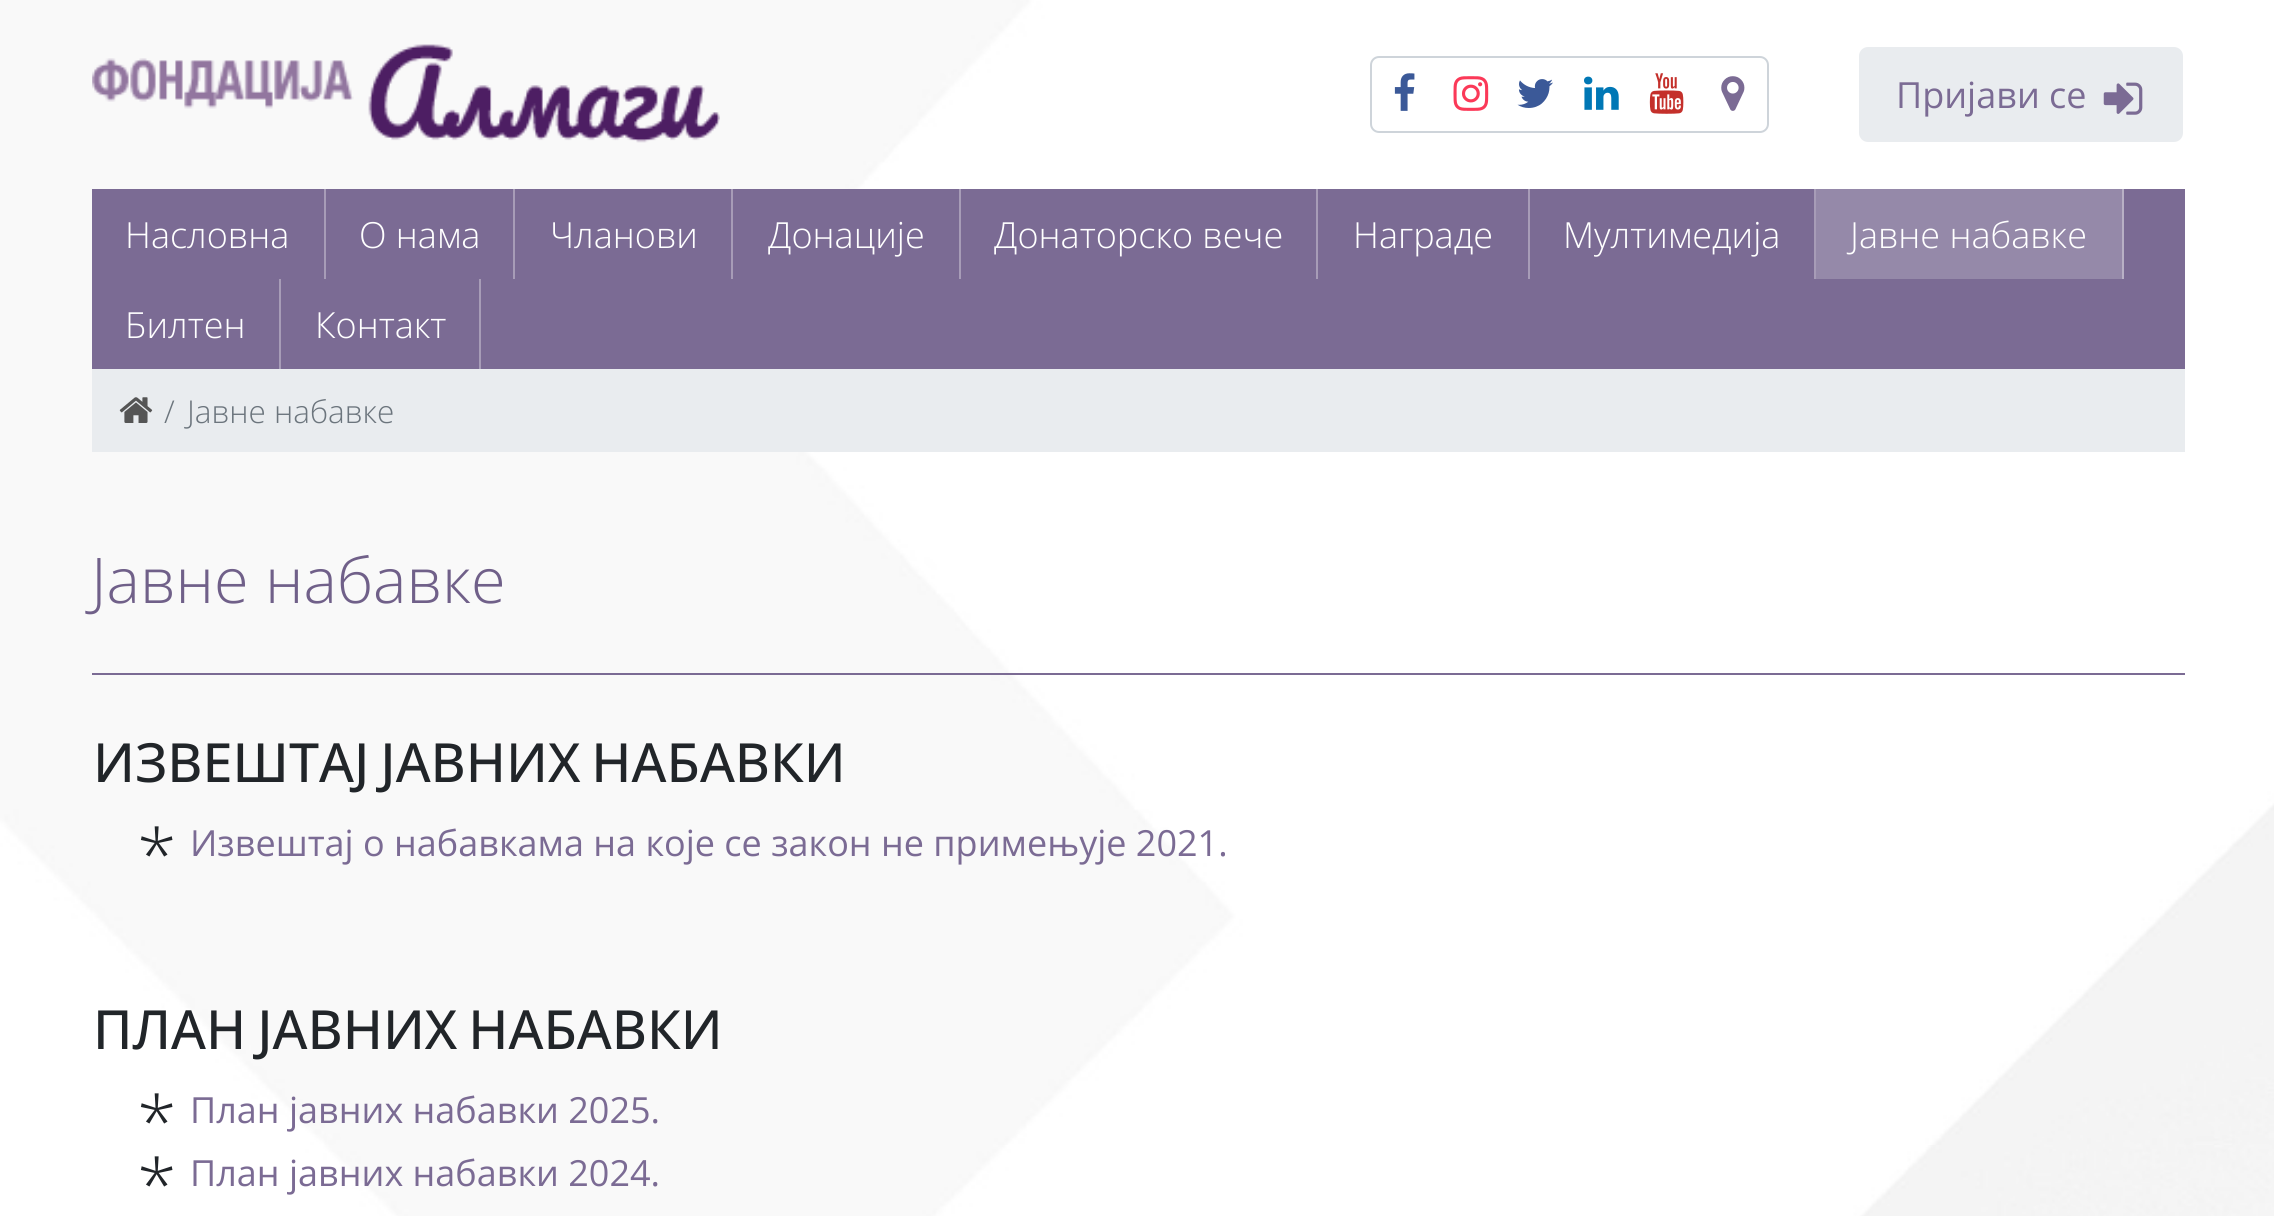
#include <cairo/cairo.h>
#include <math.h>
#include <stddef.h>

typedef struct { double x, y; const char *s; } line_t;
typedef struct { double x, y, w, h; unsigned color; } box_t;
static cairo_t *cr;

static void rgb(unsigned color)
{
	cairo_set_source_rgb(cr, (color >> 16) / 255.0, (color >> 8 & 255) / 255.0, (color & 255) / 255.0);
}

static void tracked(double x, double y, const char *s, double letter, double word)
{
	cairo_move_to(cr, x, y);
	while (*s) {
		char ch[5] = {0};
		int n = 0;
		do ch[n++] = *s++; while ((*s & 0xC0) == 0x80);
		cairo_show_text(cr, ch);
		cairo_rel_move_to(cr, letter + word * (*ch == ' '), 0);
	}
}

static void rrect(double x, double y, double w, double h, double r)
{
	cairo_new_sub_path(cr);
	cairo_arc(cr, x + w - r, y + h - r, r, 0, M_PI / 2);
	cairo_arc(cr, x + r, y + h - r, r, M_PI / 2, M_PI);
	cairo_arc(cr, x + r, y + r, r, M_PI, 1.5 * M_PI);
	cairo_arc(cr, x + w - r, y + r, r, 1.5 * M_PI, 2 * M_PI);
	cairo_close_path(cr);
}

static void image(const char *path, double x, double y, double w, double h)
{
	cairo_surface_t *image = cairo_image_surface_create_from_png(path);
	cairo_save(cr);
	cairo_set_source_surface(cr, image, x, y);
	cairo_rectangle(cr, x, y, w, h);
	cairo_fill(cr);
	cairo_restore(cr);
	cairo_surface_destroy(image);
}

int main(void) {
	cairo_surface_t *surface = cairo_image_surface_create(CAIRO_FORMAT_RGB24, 2274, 1216);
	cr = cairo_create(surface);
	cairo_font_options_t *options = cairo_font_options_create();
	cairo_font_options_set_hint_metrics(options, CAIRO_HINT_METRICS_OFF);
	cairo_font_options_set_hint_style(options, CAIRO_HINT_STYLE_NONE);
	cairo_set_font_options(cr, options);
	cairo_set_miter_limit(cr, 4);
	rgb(0xffffff);
	cairo_paint(cr);
	image("img/1.png", 0, 0, 2274, 1216);
	image("img/2.png", 92, 44, 628, 99);
	rrect(1371, 57, 397, 75, 8);
	rgb(0xced4da);
	cairo_stroke(cr);
	image("img/3.png", 1394, 73, 21, 38);
	image("img/4.png", 1453, 76, 36, 35);
	image("img/5.png", 1517, 79, 36, 29);
	image("img/6.png", 1584, 76, 35, 34);
	image("img/7.png", 1649, 73, 35, 41);
	image("img/8.png", 1721, 76, 24, 35);
	rgb(0xe9ecef);
	rrect(1859, 47, 324, 95, 9);
	cairo_fill(cr);
	image("img/9.png", 2103, 82, 40, 33);
	{
		static const box_t items[] = {
			{92, 189, 2093, 180, 0x7b6b94},
			{324, 189, 2, 90, 0xa79cb7},
			{513, 189, 2, 90, 0xa79cb7},
			{731, 189, 2, 90, 0xa79cb7},
			{959, 189, 2, 90, 0xa79cb7},
			{1316, 189, 2, 90, 0xa79cb7},
			{1528, 189, 2, 90, 0xa79cb7},
			{1814, 189, 2, 90, 0xa79cb7},
			{1816, 189, 306, 90, 0x9589a9},
			{2122, 189, 2, 90, 0xb8b0c5},
			{279, 279, 2, 90, 0xa79cb7},
			{479, 279, 2, 90, 0xa79cb7},
			{92, 369, 2093, 83, 0xe9ecef},
		};
		for (size_t i = 0; i < sizeof items / sizeof *items; i++) {
			rgb(items[i].color);
			cairo_rectangle(cr, items[i].x, items[i].y, items[i].w, items[i].h);
			cairo_fill(cr);
		}
	}
	image("img/10.png", 119, 397, 34, 26);
	rgb(0x7b6b94);
	cairo_rectangle(cr, 92, 673, 2093, 2);
	cairo_fill(cr);
	cairo_select_font_face(cr, "Open Sans", CAIRO_FONT_SLANT_NORMAL, CAIRO_FONT_WEIGHT_NORMAL);
	cairo_set_font_size(cr, 36);
	cairo_move_to(cr, 1896, 108);
	cairo_show_text(cr, "Пријави се");
	cairo_select_font_face(cr, "Open Sans Light", CAIRO_FONT_SLANT_NORMAL, CAIRO_FONT_WEIGHT_NORMAL);
	rgb(0xffffff);
	{
		static const line_t items[] = {
			{125, 248, "Насловна"},
			{359, 248, "О нама"},
			{550, 248, "Чланови"},
			{768, 248, "Донације"},
			{994, 248, "Донаторско вече"},
			{1353, 248, "Награде"},
			{1563, 248, "Мултимедија"},
			{1850, 248, "Јавне набавке"},
			{125, 338, "Билтен"},
			{315, 338, "Контакт"},
		};
		for (size_t i = 0; i < sizeof items / sizeof *items; i++) {
			cairo_move_to(cr, items[i].x, items[i].y);
			cairo_show_text(cr, items[i].s);
		}
	}
	cairo_set_font_size(cr, 31.5);
	rgb(0x6c757d);
	cairo_move_to(cr, 164, 423);
	cairo_show_text(cr, "/");
	cairo_move_to(cr, 187, 423);
	cairo_show_text(cr, "Јавне набавке");
	cairo_set_font_size(cr, 63);
	rgb(0x706089);
	cairo_move_to(cr, 91, 603);
	cairo_show_text(cr, "Јавне набавке");
	cairo_select_font_face(cr, "Open Sans Medium", CAIRO_FONT_SLANT_NORMAL, CAIRO_FONT_WEIGHT_NORMAL);
	cairo_set_font_size(cr, 54);
	rgb(0x212529);
	tracked(93, 782, "ИЗВЕШТАЈ ЈАВНИХ НАБАВКИ", 0, -3);
	cairo_select_font_face(cr, "Open Sans Light", CAIRO_FONT_SLANT_NORMAL, CAIRO_FONT_WEIGHT_NORMAL);
	cairo_set_font_size(cr, 72);
	cairo_move_to(cr, 137, 881);
	cairo_show_text(cr, "*");
	cairo_select_font_face(cr, "Open Sans", CAIRO_FONT_SLANT_NORMAL, CAIRO_FONT_WEIGHT_NORMAL);
	cairo_set_font_size(cr, 36);
	rgb(0x7b6b94);
	cairo_move_to(cr, 190, 856);
	cairo_show_text(cr, "Извештај о набавкама на које се закон не примењује 2021.");
	cairo_select_font_face(cr, "Open Sans Medium", CAIRO_FONT_SLANT_NORMAL, CAIRO_FONT_WEIGHT_NORMAL);
	cairo_set_font_size(cr, 54);
	rgb(0x212529);
	tracked(93, 1049, "ПЛАН ЈАВНИХ НАБАВКИ", 0, -3);
	cairo_select_font_face(cr, "Open Sans Light", CAIRO_FONT_SLANT_NORMAL, CAIRO_FONT_WEIGHT_NORMAL);
	cairo_set_font_size(cr, 72);
	cairo_move_to(cr, 137, 1148);
	cairo_show_text(cr, "*");
	cairo_select_font_face(cr, "Open Sans", CAIRO_FONT_SLANT_NORMAL, CAIRO_FONT_WEIGHT_NORMAL);
	cairo_set_font_size(cr, 36);
	rgb(0x7b6b94);
	cairo_move_to(cr, 190, 1123);
	cairo_show_text(cr, "План јавних набавки 2025.");
	cairo_select_font_face(cr, "Open Sans Light", CAIRO_FONT_SLANT_NORMAL, CAIRO_FONT_WEIGHT_NORMAL);
	cairo_set_font_size(cr, 72);
	rgb(0x212529);
	cairo_move_to(cr, 137, 1211);
	cairo_show_text(cr, "*");
	cairo_select_font_face(cr, "Open Sans", CAIRO_FONT_SLANT_NORMAL, CAIRO_FONT_WEIGHT_NORMAL);
	cairo_set_font_size(cr, 36);
	rgb(0x7b6b94);
	cairo_move_to(cr, 190, 1186);
	cairo_show_text(cr, "План јавних набавки 2024.");
	cairo_surface_write_to_png(surface, "page.png");
	cairo_font_options_destroy(options);
	cairo_destroy(cr);
	cairo_surface_destroy(surface);
	return 0;
}
